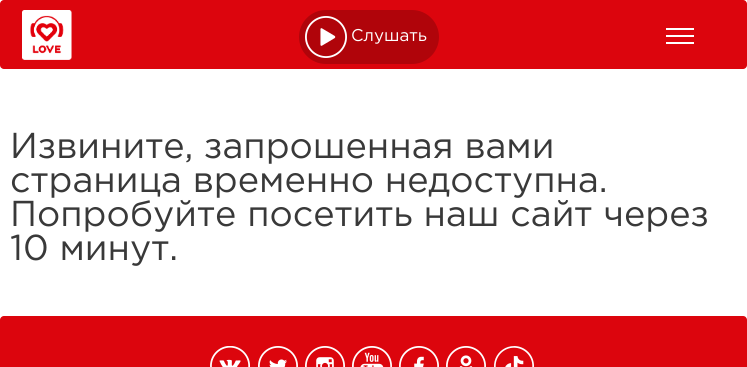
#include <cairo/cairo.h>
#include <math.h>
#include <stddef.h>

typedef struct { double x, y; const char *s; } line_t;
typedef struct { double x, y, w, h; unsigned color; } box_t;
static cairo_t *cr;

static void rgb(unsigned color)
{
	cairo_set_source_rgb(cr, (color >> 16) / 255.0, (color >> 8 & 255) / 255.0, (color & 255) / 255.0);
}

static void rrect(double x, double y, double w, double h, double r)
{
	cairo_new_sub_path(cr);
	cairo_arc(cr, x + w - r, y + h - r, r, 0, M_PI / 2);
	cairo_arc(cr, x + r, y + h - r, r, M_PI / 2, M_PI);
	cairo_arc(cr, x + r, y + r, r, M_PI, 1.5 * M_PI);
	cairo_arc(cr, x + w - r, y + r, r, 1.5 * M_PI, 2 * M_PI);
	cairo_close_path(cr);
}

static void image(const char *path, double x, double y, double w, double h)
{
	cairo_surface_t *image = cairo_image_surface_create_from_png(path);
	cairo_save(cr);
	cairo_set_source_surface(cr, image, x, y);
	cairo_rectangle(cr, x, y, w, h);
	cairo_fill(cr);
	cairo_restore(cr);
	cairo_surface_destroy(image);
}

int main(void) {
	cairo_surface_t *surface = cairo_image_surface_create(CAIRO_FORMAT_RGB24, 747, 367);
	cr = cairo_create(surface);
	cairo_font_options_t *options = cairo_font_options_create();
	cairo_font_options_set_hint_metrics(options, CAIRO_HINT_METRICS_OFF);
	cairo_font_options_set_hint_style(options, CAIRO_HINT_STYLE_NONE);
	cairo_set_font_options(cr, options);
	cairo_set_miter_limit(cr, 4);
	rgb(0xffffff);
	cairo_paint(cr);
	rgb(0xdc050d);
	rrect(0, 0, 747, 69, 4);
	cairo_fill(cr);
	image("img/1.png", 22, 10, 50, 50);
	rgb(0xb0040a);
	rrect(299, 10, 140, 54, 27);
	cairo_fill(cr);
	image("img/2.png", 305, 16, 42, 42);
	{
		static const box_t items[] = {
			{666, 35, 28, 2, 0xffffff},
			{666, 28, 28, 2, 0xffffff},
			{666, 42, 28, 2, 0xffffff},
		};
		for (size_t i = 0; i < sizeof items / sizeof *items; i++) {
			rgb(items[i].color);
			cairo_rectangle(cr, items[i].x, items[i].y, items[i].w, items[i].h);
			cairo_fill(cr);
		}
	}
	rgb(0xdc050d);
	rrect(0, 316, 747, 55, 4);
	cairo_fill(cr);
	image("img/3.png", 210, 346, 40, 21);
	image("img/4.png", 258, 346, 40, 21);
	image("img/5.png", 305, 346, 40, 21);
	image("img/6.png", 352, 346, 40, 21);
	image("img/7.png", 399, 346, 40, 21);
	image("img/8.png", 446, 346, 40, 21);
	image("img/9.png", 494, 346, 40, 21);
	cairo_select_font_face(cr, "Gotham", CAIRO_FONT_SLANT_NORMAL, CAIRO_FONT_WEIGHT_NORMAL);
	cairo_set_font_size(cr, 17);
	rgb(0xffffff);
	cairo_move_to(cr, 351, 41);
	cairo_show_text(cr, "Слушать");
	cairo_set_font_size(cr, 36);
	rgb(0x393939);
	{
		static const line_t items[] = {
			{10, 158, "Извините, запрошенная вами"},
			{10, 192, "страница временно недоступна."},
			{10, 226, "Попробуйте посетить наш сайт через"},
			{10, 260, "10 минут."},
		};
		for (size_t i = 0; i < sizeof items / sizeof *items; i++) {
			cairo_move_to(cr, items[i].x, items[i].y);
			cairo_show_text(cr, items[i].s);
		}
	}
	cairo_surface_write_to_png(surface, "page.png");
	cairo_font_options_destroy(options);
	cairo_destroy(cr);
	cairo_surface_destroy(surface);
	return 0;
}
